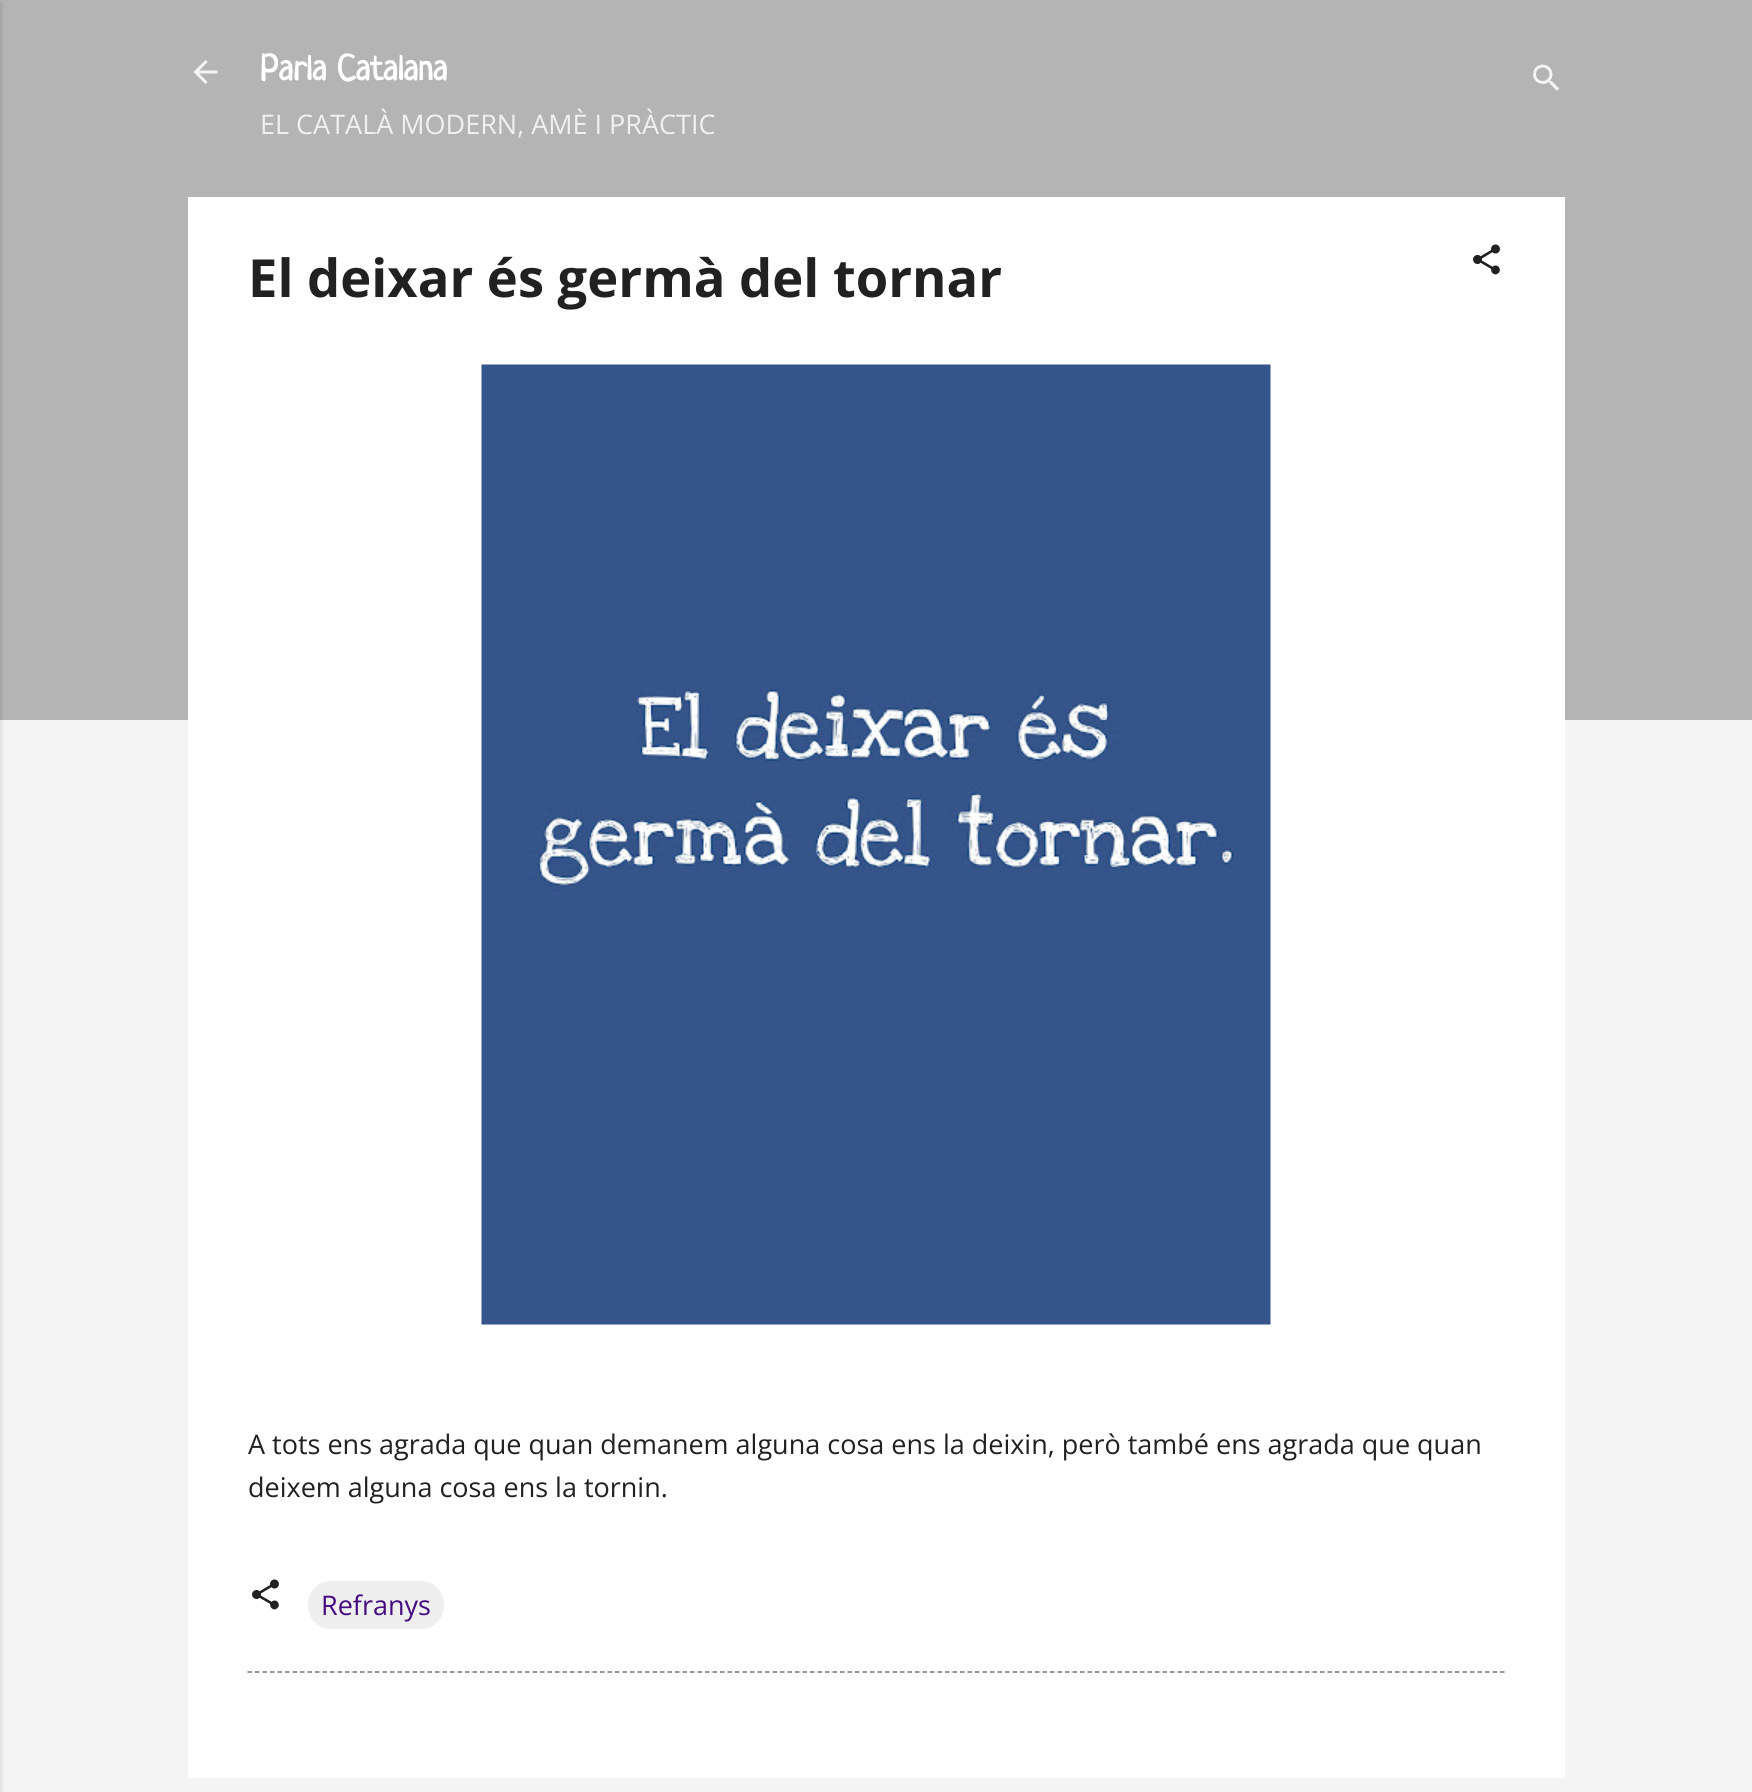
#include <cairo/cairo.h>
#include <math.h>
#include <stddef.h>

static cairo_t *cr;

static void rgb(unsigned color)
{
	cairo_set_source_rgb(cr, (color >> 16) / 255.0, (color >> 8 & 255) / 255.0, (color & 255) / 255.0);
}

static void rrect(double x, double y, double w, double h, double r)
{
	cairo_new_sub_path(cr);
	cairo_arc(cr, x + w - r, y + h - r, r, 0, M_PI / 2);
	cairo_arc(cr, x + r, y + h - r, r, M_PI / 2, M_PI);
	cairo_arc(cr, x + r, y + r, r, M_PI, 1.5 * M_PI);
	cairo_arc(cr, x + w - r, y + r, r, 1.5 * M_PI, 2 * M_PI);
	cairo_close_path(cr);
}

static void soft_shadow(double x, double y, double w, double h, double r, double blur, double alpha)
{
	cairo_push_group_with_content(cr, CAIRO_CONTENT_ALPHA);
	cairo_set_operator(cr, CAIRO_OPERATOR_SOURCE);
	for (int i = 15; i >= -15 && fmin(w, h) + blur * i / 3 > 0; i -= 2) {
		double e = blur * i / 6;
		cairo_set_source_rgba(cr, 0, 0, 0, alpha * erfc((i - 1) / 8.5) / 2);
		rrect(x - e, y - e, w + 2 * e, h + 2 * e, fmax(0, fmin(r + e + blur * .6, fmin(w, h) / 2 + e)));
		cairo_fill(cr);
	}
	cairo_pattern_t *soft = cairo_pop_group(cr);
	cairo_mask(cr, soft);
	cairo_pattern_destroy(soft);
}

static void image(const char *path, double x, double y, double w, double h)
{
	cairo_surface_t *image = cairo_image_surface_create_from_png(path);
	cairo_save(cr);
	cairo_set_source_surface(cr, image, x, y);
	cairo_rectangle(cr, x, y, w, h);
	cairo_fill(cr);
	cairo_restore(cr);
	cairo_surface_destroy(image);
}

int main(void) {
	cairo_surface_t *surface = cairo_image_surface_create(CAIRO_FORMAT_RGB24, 1752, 1792);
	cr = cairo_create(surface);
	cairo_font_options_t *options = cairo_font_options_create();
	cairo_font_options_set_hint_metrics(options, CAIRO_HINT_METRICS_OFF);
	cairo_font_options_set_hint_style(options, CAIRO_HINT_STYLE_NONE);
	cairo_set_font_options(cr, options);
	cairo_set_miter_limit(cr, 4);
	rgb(0xf4f4f4);
	cairo_paint(cr);
	rgb(0xb4b4b4);
	cairo_rectangle(cr, 0, 0, 1752, 720);
	cairo_fill(cr);
	rgb(0x000000);
	soft_shadow(-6, 2, 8, 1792, 0, 2, 0.1);
	image("img/1.png", 193, 60, 25, 24);
	image("img/2.png", 1533, 64, 26, 27);
	rgb(0xffffff);
	cairo_rectangle(cr, 188, 197, 1377, 1581);
	cairo_fill(cr);
	image("img/3.png", 1473, 244, 27, 31);
	image("img/4.png", 481, 364, 790, 961);
	image("img/5.png", 252, 1579, 27, 31);
	rgb(0xeeeeee);
	rrect(309, 1582, 134, 46, 22);
	cairo_fill_preserve(cr);
	cairo_stroke(cr);
	cairo_new_path(cr);
	cairo_move_to(cr, 247.5, 1672);
	cairo_line_to(cr, 1504.5, 1672);
	rgb(0x757575);
	cairo_set_line_width(cr, 1.5);
	cairo_set_dash(cr, (double[]){4.5, 3}, 2, 0);
	cairo_stroke(cr);
	cairo_select_font_face(cr, "Neucha", CAIRO_FONT_SLANT_NORMAL, CAIRO_FONT_WEIGHT_BOLD);
	cairo_set_font_size(cr, 36);
	rgb(0xffffff);
	cairo_move_to(cr, 260, 80);
	cairo_show_text(cr, "Parla Catalana");
	cairo_select_font_face(cr, "Open Sans", CAIRO_FONT_SLANT_NORMAL, CAIRO_FONT_WEIGHT_NORMAL);
	cairo_set_font_size(cr, 27);
	rgb(0xf0f0f0);
	cairo_move_to(cr, 260, 134);
	cairo_show_text(cr, "EL CATALÀ MODERN, AMÈ I PRÀCTIC");
	cairo_select_font_face(cr, "Open Sans", CAIRO_FONT_SLANT_NORMAL, CAIRO_FONT_WEIGHT_BOLD);
	cairo_set_font_size(cr, 52.5);
	rgb(0x212121);
	cairo_move_to(cr, 248, 297);
	cairo_show_text(cr, "El deixar és germà del tornar");
	cairo_select_font_face(cr, "Open Sans", CAIRO_FONT_SLANT_NORMAL, CAIRO_FONT_WEIGHT_NORMAL);
	cairo_set_font_size(cr, 27);
	cairo_move_to(cr, 248, 1454);
	cairo_show_text(cr, "A tots ens agrada que quan demanem alguna cosa ens la deixin, però també ens agrada que quan");
	cairo_move_to(cr, 248, 1497);
	cairo_show_text(cr, "deixem alguna cosa ens la tornin.");
	rgb(0x440b80);
	cairo_move_to(cr, 321, 1615);
	cairo_show_text(cr, "Refranys");
	cairo_surface_write_to_png(surface, "page.png");
	cairo_font_options_destroy(options);
	cairo_destroy(cr);
	cairo_surface_destroy(surface);
	return 0;
}
